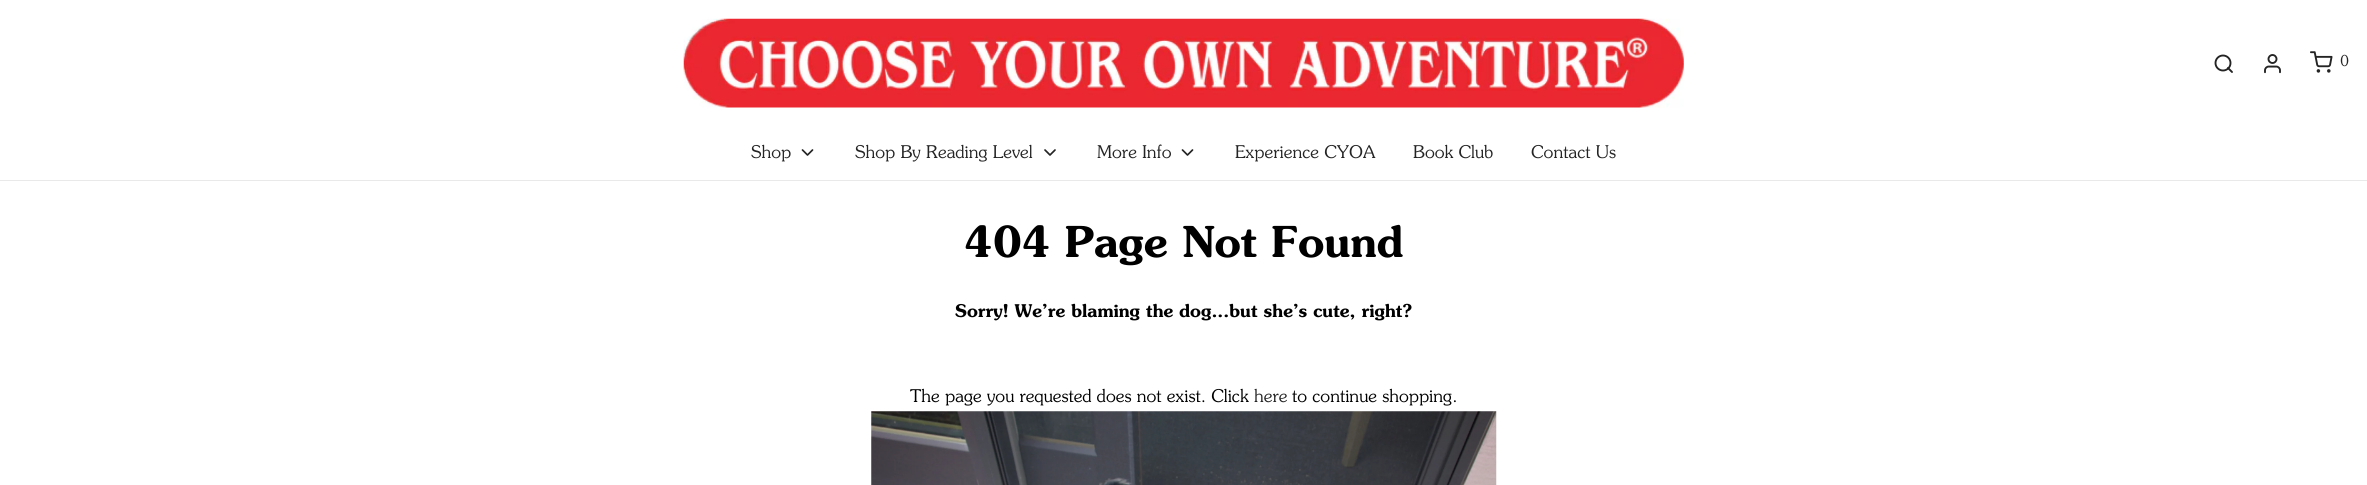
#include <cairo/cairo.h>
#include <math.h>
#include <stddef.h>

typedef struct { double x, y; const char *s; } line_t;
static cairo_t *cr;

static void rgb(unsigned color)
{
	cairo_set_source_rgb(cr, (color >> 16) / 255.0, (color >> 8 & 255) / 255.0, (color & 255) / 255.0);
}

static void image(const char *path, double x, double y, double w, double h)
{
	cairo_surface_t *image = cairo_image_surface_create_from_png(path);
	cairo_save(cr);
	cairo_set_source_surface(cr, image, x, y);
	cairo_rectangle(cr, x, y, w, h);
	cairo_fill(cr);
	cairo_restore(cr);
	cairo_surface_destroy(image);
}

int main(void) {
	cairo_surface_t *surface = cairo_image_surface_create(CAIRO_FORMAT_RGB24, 2367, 485);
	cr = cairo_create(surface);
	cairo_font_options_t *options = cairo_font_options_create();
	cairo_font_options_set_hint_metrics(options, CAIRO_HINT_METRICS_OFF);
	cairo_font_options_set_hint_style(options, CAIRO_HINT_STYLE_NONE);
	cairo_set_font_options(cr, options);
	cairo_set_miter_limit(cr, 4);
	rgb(0xffffff);
	cairo_paint(cr);
	rgb(0xe9e9e9);
	cairo_rectangle(cr, 0, 180, 2367, 1);
	cairo_fill(cr);
	image("img/1.png", 683, 18, 1001, 90);
	cairo_arc(cr, 2223, 63, 7.5, 0, 2 * M_PI);
	rgb(0x242424);
	cairo_set_line_width(cr, 1.9);
	cairo_stroke(cr);
	cairo_new_path(cr);
	cairo_move_to(cr, 2232, 72);
	cairo_line_to(cr, 2228, 68);
	cairo_set_line_cap(cr, CAIRO_LINE_CAP_ROUND);
	cairo_set_line_join(cr, CAIRO_LINE_JOIN_ROUND);
	cairo_stroke(cr);
	image("img/2.png", 2264, 54, 17, 20);
	image("img/3.png", 2310, 51, 23, 22);
	cairo_new_path(cr);
	cairo_move_to(cr, 802.5, 150);
	cairo_line_to(cr, 807.5, 155);
	cairo_line_to(cr, 812.5, 150);
	cairo_set_line_width(cr, 1.7);
	cairo_stroke(cr);
	cairo_new_path(cr);
	cairo_move_to(cr, 1045, 150);
	cairo_line_to(cr, 1050, 155);
	cairo_line_to(cr, 1055, 150);
	cairo_stroke(cr);
	cairo_new_path(cr);
	cairo_move_to(cr, 1182.5, 150);
	cairo_line_to(cr, 1187.5, 155);
	cairo_line_to(cr, 1192.5, 150);
	cairo_stroke(cr);
	image("img/4.png", 871, 411, 626, 74);
	cairo_select_font_face(cr, "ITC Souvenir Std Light", CAIRO_FONT_SLANT_NORMAL, CAIRO_FONT_WEIGHT_NORMAL);
	cairo_set_font_size(cr, 15);
	cairo_move_to(cr, 2340, 66);
	cairo_show_text(cr, "0");
	cairo_set_font_size(cr, 17.5);
	{
		static const line_t items[] = {
			{751, 158, "Shop"},
			{855, 158, "Shop By Reading Level"},
			{1097, 158, "More Info"},
			{1235, 158, "Experience CYOA"},
			{1413, 158, "Book Club"},
			{1531, 158, "Contact Us"},
		};
		for (size_t i = 0; i < sizeof items / sizeof *items; i++) {
			cairo_move_to(cr, items[i].x, items[i].y);
			cairo_show_text(cr, items[i].s);
		}
	}
	cairo_select_font_face(cr, "ITC Souvenir Std SemiBold", CAIRO_FONT_SLANT_NORMAL, CAIRO_FONT_WEIGHT_NORMAL);
	cairo_set_font_size(cr, 42.5);
	rgb(0x000000);
	cairo_move_to(cr, 964, 257);
	cairo_show_text(cr, "404 Page Not Found");
	cairo_set_font_size(cr, 17.5);
	cairo_move_to(cr, 955, 317);
	cairo_show_text(cr, "Sorry! We’re blaming the dog...but she’s cute, right?");
	cairo_select_font_face(cr, "ITC Souvenir Std Light", CAIRO_FONT_SLANT_NORMAL, CAIRO_FONT_WEIGHT_NORMAL);
	cairo_move_to(cr, 910, 402);
	cairo_show_text(cr, "The page you requested does not exist. Click");
	rgb(0x242424);
	cairo_move_to(cr, 1254, 402);
	cairo_show_text(cr, "here");
	rgb(0x000000);
	cairo_move_to(cr, 1292, 402);
	cairo_show_text(cr, "to continue shopping.");
	cairo_surface_write_to_png(surface, "page.png");
	cairo_font_options_destroy(options);
	cairo_destroy(cr);
	cairo_surface_destroy(surface);
	return 0;
}
